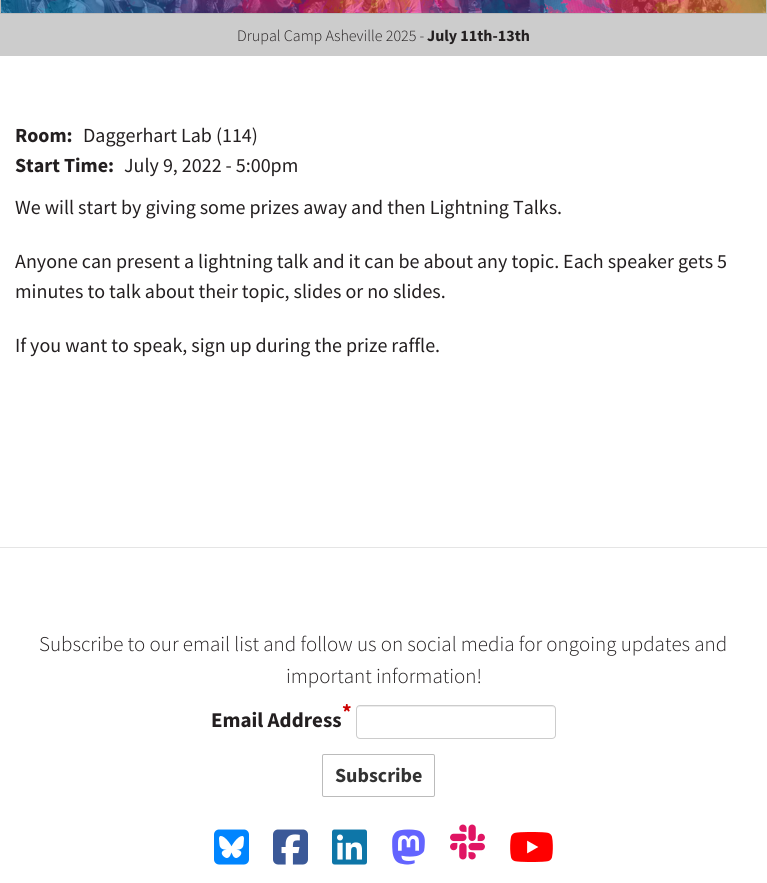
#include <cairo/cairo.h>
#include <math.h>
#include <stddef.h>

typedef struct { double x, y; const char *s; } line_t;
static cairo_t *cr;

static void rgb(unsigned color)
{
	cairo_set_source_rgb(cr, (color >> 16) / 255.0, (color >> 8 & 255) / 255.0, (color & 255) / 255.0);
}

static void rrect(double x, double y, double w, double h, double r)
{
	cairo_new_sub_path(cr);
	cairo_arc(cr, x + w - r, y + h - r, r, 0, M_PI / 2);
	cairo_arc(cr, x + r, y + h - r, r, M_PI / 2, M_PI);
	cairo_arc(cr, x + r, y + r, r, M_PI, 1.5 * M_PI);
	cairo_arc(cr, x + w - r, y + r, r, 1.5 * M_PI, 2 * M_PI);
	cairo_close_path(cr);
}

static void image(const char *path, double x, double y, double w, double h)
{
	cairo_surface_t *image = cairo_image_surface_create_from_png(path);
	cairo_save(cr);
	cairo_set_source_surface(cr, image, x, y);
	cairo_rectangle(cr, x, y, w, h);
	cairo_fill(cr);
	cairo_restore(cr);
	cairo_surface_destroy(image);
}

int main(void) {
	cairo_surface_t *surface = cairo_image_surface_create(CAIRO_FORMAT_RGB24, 767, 883);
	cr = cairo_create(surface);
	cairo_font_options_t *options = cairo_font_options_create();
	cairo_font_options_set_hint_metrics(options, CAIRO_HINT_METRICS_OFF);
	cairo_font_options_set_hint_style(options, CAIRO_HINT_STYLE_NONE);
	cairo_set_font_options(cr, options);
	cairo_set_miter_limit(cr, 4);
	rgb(0xffffff);
	cairo_paint(cr);
	image("img/1.png", 1, 0, 765, 13);
	cairo_rectangle(cr, 0.5, -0.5, 766, 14);
	rgb(0xbbbbbb);
	cairo_set_line_width(cr, 1);
	cairo_stroke(cr);
	rgb(0xcccccc);
	cairo_rectangle(cr, 0, 14, 767, 42);
	cairo_fill(cr);
	rgb(0xe5e5e5);
	cairo_rectangle(cr, 0, 547, 767, 1);
	cairo_fill(cr);
	rgb(0xececec);
	cairo_new_path(cr);
	cairo_move_to(cr, 360, 707);
	cairo_line_to(cr, 552, 707);
	cairo_curve_to(cr, 554, 707, 555, 708, 555, 710);
	cairo_curve_to(cr, 555, 708, 554, 706, 552, 706);
	cairo_line_to(cr, 360, 706);
	cairo_curve_to(cr, 358, 706, 357, 708, 357, 710);
	cairo_curve_to(cr, 357, 708, 358, 707, 360, 707);
	cairo_close_path(cr);
	cairo_fill(cr);
	rrect(356.5, 705.5, 199, 33, 3.5);
	rgb(0xcccccc);
	cairo_stroke(cr);
	rrect(322.5, 754.5, 112, 42, 1.5);
	rgb(0xbbbbbb);
	cairo_stroke(cr);
	image("img/2.png", 214, 829, 35, 36);
	image("img/3.png", 273, 829, 35, 36);
	image("img/4.png", 332, 829, 35, 36);
	image("img/5.png", 392, 829, 33, 36);
	image("img/6.png", 450, 824, 35, 36);
	image("img/7.png", 510, 832, 43, 30);
	cairo_select_font_face(cr, "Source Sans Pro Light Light", CAIRO_FONT_SLANT_NORMAL, CAIRO_FONT_WEIGHT_NORMAL);
	cairo_set_font_size(cr, 16);
	rgb(0x231f20);
	cairo_move_to(cr, 237, 41);
	cairo_show_text(cr, "Drupal Camp Asheville 2025 -");
	cairo_select_font_face(cr, "Source Sans Pro", CAIRO_FONT_SLANT_NORMAL, CAIRO_FONT_WEIGHT_BOLD);
	cairo_move_to(cr, 427, 41);
	cairo_show_text(cr, "July 11th-13th");
	cairo_set_font_size(cr, 20);
	cairo_move_to(cr, 15, 142);
	cairo_show_text(cr, "Room:");
	cairo_select_font_face(cr, "Source Sans Pro", CAIRO_FONT_SLANT_NORMAL, CAIRO_FONT_WEIGHT_NORMAL);
	cairo_move_to(cr, 83, 142);
	cairo_show_text(cr, "Daggerhart Lab (114)");
	cairo_select_font_face(cr, "Source Sans Pro", CAIRO_FONT_SLANT_NORMAL, CAIRO_FONT_WEIGHT_BOLD);
	cairo_move_to(cr, 15, 172);
	cairo_show_text(cr, "Start Time:");
	cairo_select_font_face(cr, "Source Sans Pro", CAIRO_FONT_SLANT_NORMAL, CAIRO_FONT_WEIGHT_NORMAL);
	{
		static const line_t items[] = {
			{124, 172, "July 9, 2022 - 5:00pm"},
			{15, 214, "We will start by giving some prizes away and then Lightning Talks."},
			{15, 268, "Anyone can present a lightning talk and it can be about any topic. Each speaker gets 5"},
			{15, 298, "minutes to talk about their topic, slides or no slides."},
			{15, 352, "If you want to speak, sign up during the prize raffle."},
		};
		for (size_t i = 0; i < sizeof items / sizeof *items; i++) {
			cairo_move_to(cr, items[i].x, items[i].y);
			cairo_show_text(cr, items[i].s);
		}
	}
	cairo_select_font_face(cr, "Source Sans Pro Light Light", CAIRO_FONT_SLANT_NORMAL, CAIRO_FONT_WEIGHT_NORMAL);
	cairo_set_font_size(cr, 21);
	cairo_move_to(cr, 39, 651);
	cairo_show_text(cr, "Subscribe to our email list and follow us on social media for ongoing updates and");
	cairo_move_to(cr, 286, 683);
	cairo_show_text(cr, "important information!");
	cairo_select_font_face(cr, "Source Sans Pro", CAIRO_FONT_SLANT_NORMAL, CAIRO_FONT_WEIGHT_BOLD);
	rgb(0xcc0000);
	cairo_move_to(cr, 342, 719);
	cairo_show_text(cr, "*");
	rgb(0x231f20);
	cairo_move_to(cr, 211, 727);
	cairo_show_text(cr, "Email Address");
	cairo_set_font_size(cr, 20);
	rgb(0x333333);
	cairo_move_to(cr, 335, 782);
	cairo_show_text(cr, "Subscribe");
	cairo_surface_write_to_png(surface, "page.png");
	cairo_font_options_destroy(options);
	cairo_destroy(cr);
	cairo_surface_destroy(surface);
	return 0;
}
